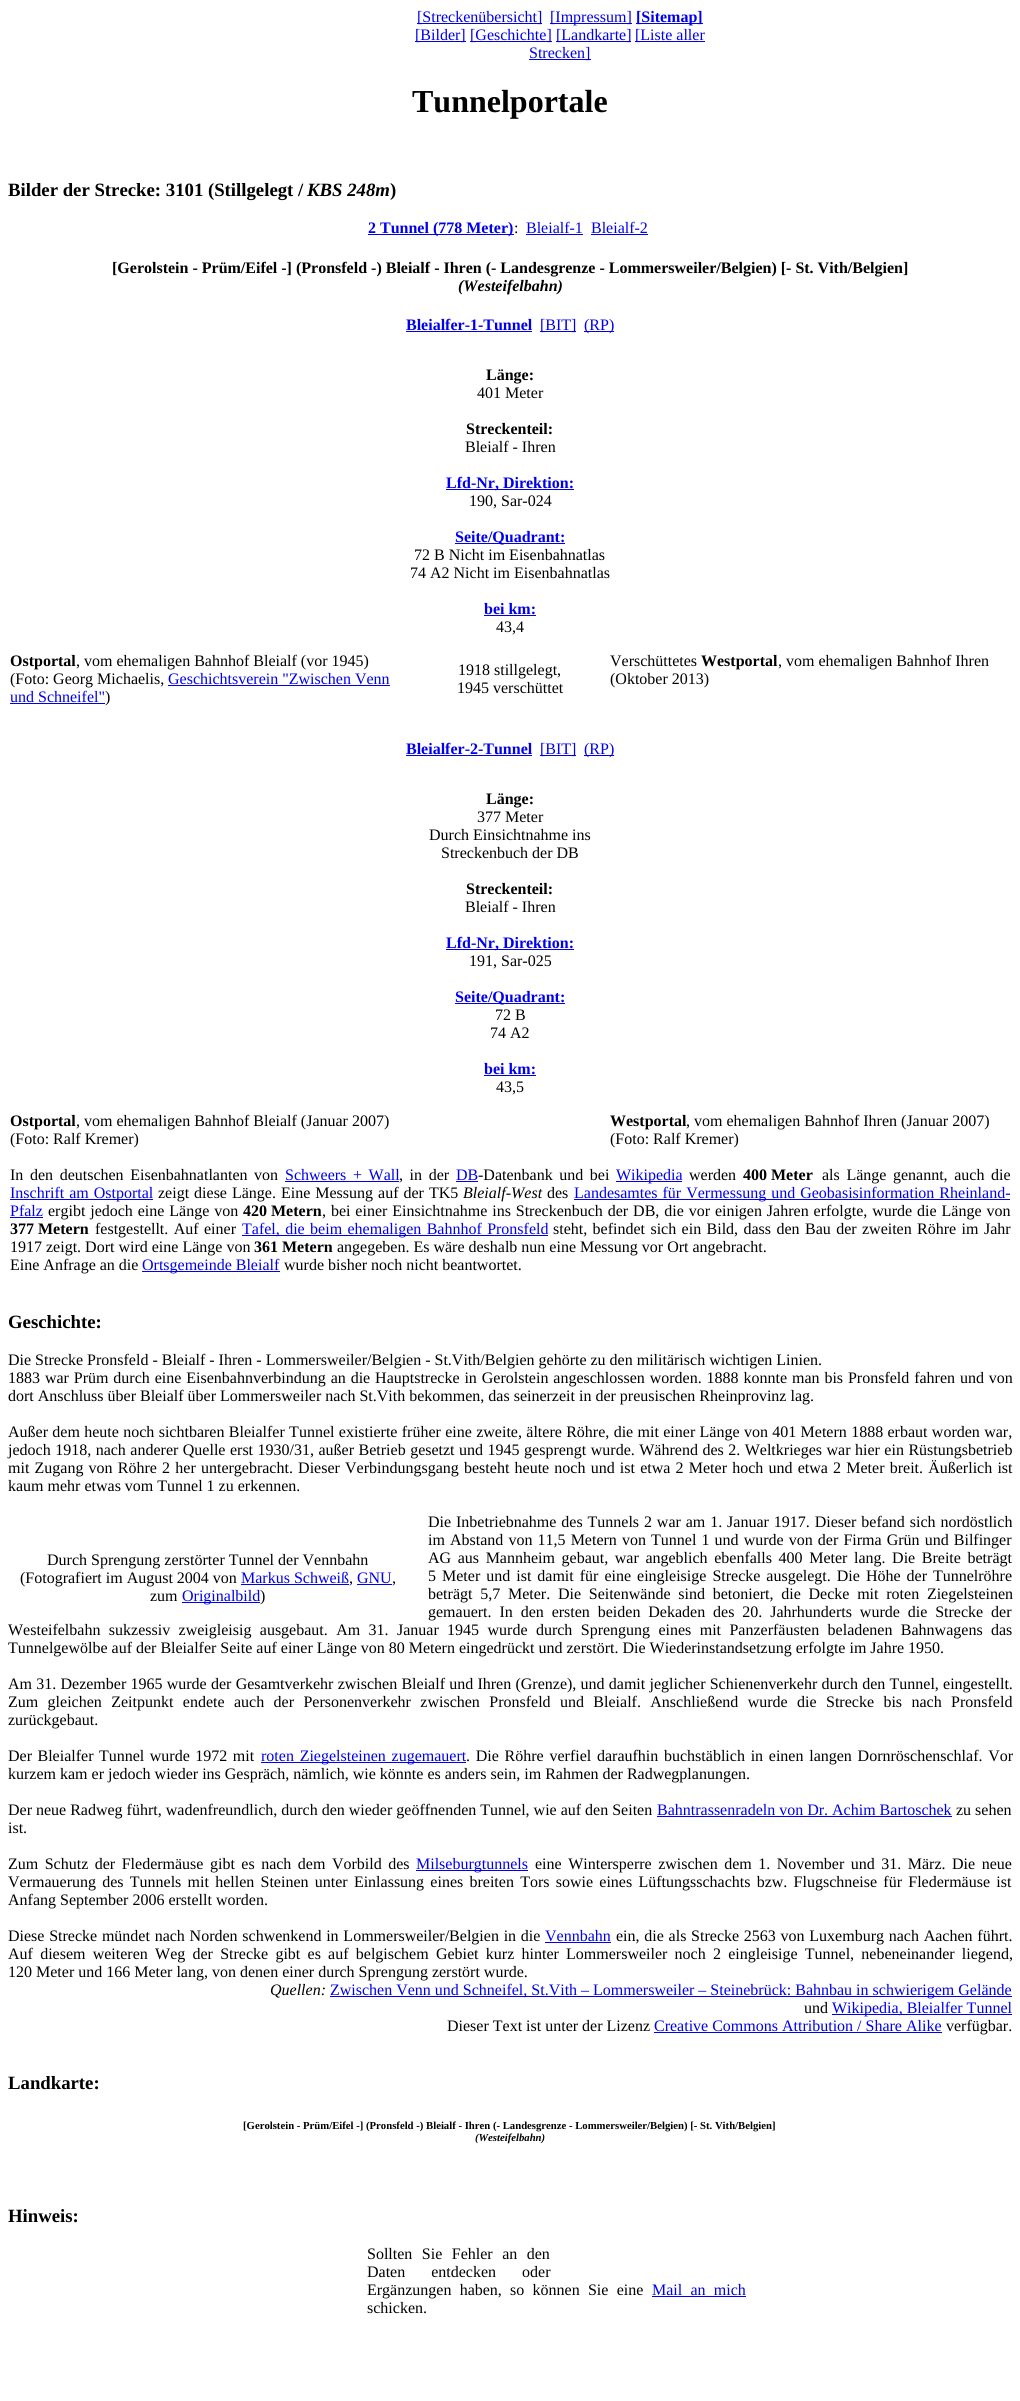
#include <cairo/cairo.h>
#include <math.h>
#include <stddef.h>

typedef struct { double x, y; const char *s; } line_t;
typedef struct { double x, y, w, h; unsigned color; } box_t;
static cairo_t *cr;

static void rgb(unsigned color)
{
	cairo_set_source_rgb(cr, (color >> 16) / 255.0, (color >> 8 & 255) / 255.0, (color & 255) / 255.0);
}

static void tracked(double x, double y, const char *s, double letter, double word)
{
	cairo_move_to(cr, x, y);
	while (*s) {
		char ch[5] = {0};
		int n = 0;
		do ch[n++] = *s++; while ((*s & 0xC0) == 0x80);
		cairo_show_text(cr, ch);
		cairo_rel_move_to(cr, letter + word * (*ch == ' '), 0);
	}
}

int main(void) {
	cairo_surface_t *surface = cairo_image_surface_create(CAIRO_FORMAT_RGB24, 1020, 2401);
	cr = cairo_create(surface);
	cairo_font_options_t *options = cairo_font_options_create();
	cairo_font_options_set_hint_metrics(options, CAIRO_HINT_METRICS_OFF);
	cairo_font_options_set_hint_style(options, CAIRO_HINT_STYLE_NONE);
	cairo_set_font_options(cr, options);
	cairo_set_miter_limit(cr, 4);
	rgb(0xffffff);
	cairo_paint(cr);
	{
		static const box_t items[] = {
			{417, 23, 125, 1, 0x0000ee},
			{550, 23, 82, 1, 0x0000ee},
			{636, 23, 67, 1, 0x0000ee},
			{415, 41, 51, 1, 0x0000ee},
			{470, 41, 82, 1, 0x0000ee},
			{556, 41, 75, 1, 0x0000ee},
			{635, 41, 70, 1, 0x0000ee},
			{529, 59, 62, 1, 0x0000ee},
			{368, 234, 146, 1, 0x0000ee},
			{526, 234, 57, 1, 0x0000ee},
			{591, 234, 57, 1, 0x0000ee},
			{406, 331, 126, 1, 0x0000ee},
			{540, 331, 36, 1, 0x0000ee},
			{584, 331, 30, 1, 0x0000ee},
			{446, 489, 128, 1, 0x0000ee},
			{455, 543, 110, 1, 0x0000ee},
			{484, 615, 52, 1, 0x0000ee},
			{168, 685, 222, 1, 0x0000ee},
			{10, 703, 95, 1, 0x0000ee},
			{406, 755, 126, 1, 0x0000ee},
			{540, 755, 36, 1, 0x0000ee},
			{584, 755, 30, 1, 0x0000ee},
			{446, 949, 128, 1, 0x0000ee},
			{455, 1003, 110, 1, 0x0000ee},
			{484, 1075, 52, 1, 0x0000ee},
			{285, 1181, 114, 1, 0x0000ee},
			{456, 1181, 22, 1, 0x0000ee},
			{616, 1181, 66, 1, 0x0000ee},
			{10, 1199, 143, 1, 0x0000ee},
			{574, 1199, 436, 1, 0x0000ee},
			{10, 1217, 33, 1, 0x0000ee},
			{242, 1235, 306, 1, 0x0000ee},
			{142, 1271, 138, 1, 0x0000ee},
			{241, 1584, 108, 1, 0x0000ee},
			{357, 1584, 35, 1, 0x0000ee},
			{182, 1602, 78, 1, 0x0000ee},
			{261, 1762, 205, 1, 0x0000ee},
			{657, 1816, 295, 1, 0x0000ee},
			{416, 1870, 112, 1, 0x0000ee},
			{545, 1942, 66, 1, 0x0000ee},
			{330, 1996, 682, 1, 0x0000ee},
			{832, 2014, 180, 1, 0x0000ee},
			{654, 2032, 288, 1, 0x0000ee},
			{652, 2296, 94, 1, 0x0000ee},
		};
		for (size_t i = 0; i < sizeof items / sizeof *items; i++) {
			rgb(items[i].color);
			cairo_rectangle(cr, items[i].x, items[i].y, items[i].w, items[i].h);
			cairo_fill(cr);
		}
	}
	cairo_select_font_face(cr, "Liberation Serif", CAIRO_FONT_SLANT_NORMAL, CAIRO_FONT_WEIGHT_NORMAL);
	cairo_set_font_size(cr, 16);
	cairo_move_to(cr, 417, 22);
	cairo_show_text(cr, "[Streckenübersicht]");
	cairo_move_to(cr, 550, 22);
	cairo_show_text(cr, "[Impressum]");
	cairo_select_font_face(cr, "Liberation Serif", CAIRO_FONT_SLANT_NORMAL, CAIRO_FONT_WEIGHT_BOLD);
	cairo_move_to(cr, 636, 22);
	cairo_show_text(cr, "[Sitemap]");
	cairo_select_font_face(cr, "Liberation Serif", CAIRO_FONT_SLANT_NORMAL, CAIRO_FONT_WEIGHT_NORMAL);
	{
		static const line_t items[] = {
			{415, 40, "[Bilder]"},
			{470, 40, "[Geschichte]"},
			{556, 40, "[Landkarte]"},
			{635, 40, "[Liste aller"},
			{529, 58, "Strecken]"},
		};
		for (size_t i = 0; i < sizeof items / sizeof *items; i++) {
			cairo_move_to(cr, items[i].x, items[i].y);
			cairo_show_text(cr, items[i].s);
		}
	}
	cairo_select_font_face(cr, "Liberation Serif", CAIRO_FONT_SLANT_NORMAL, CAIRO_FONT_WEIGHT_BOLD);
	cairo_set_font_size(cr, 32);
	rgb(0x000000);
	cairo_move_to(cr, 412, 112);
	cairo_show_text(cr, "Tunnelportale");
	cairo_set_font_size(cr, 18.75);
	cairo_move_to(cr, 8, 196);
	cairo_show_text(cr, "Bilder der Strecke: 3101 (Stillgelegt /");
	cairo_select_font_face(cr, "Liberation Serif", CAIRO_FONT_SLANT_ITALIC, CAIRO_FONT_WEIGHT_BOLD);
	cairo_move_to(cr, 307, 196);
	cairo_show_text(cr, "KBS 248m");
	cairo_select_font_face(cr, "Liberation Serif", CAIRO_FONT_SLANT_NORMAL, CAIRO_FONT_WEIGHT_BOLD);
	cairo_move_to(cr, 390, 196);
	cairo_show_text(cr, ")");
	cairo_set_font_size(cr, 16);
	rgb(0x0000ee);
	cairo_move_to(cr, 368, 233);
	cairo_show_text(cr, "2 Tunnel (778 Meter)");
	cairo_select_font_face(cr, "Liberation Serif", CAIRO_FONT_SLANT_NORMAL, CAIRO_FONT_WEIGHT_NORMAL);
	rgb(0x000000);
	cairo_move_to(cr, 514, 233);
	cairo_show_text(cr, ":");
	rgb(0x0000ee);
	cairo_move_to(cr, 526, 233);
	cairo_show_text(cr, "Bleialf-1");
	cairo_move_to(cr, 591, 233);
	cairo_show_text(cr, "Bleialf-2");
	cairo_select_font_face(cr, "Liberation Serif", CAIRO_FONT_SLANT_NORMAL, CAIRO_FONT_WEIGHT_BOLD);
	rgb(0x000000);
	cairo_move_to(cr, 112, 273);
	cairo_show_text(cr, "[Gerolstein - Prüm/Eifel -] (Pronsfeld -) Bleialf - Ihren (- Landesgrenze - Lommersweiler/Belgien) [- St. Vith/Belgien]");
	cairo_select_font_face(cr, "Liberation Serif", CAIRO_FONT_SLANT_ITALIC, CAIRO_FONT_WEIGHT_BOLD);
	cairo_move_to(cr, 458, 291);
	cairo_show_text(cr, "(Westeifelbahn)");
	cairo_select_font_face(cr, "Liberation Serif", CAIRO_FONT_SLANT_NORMAL, CAIRO_FONT_WEIGHT_BOLD);
	rgb(0x0000ee);
	cairo_move_to(cr, 406, 330);
	cairo_show_text(cr, "Bleialfer-1-Tunnel");
	cairo_select_font_face(cr, "Liberation Serif", CAIRO_FONT_SLANT_NORMAL, CAIRO_FONT_WEIGHT_NORMAL);
	cairo_move_to(cr, 540, 330);
	cairo_show_text(cr, "[BIT]");
	cairo_move_to(cr, 584, 330);
	cairo_show_text(cr, "(RP)");
	cairo_select_font_face(cr, "Liberation Serif", CAIRO_FONT_SLANT_NORMAL, CAIRO_FONT_WEIGHT_BOLD);
	rgb(0x000000);
	cairo_move_to(cr, 486, 380);
	cairo_show_text(cr, "Länge:");
	cairo_select_font_face(cr, "Liberation Serif", CAIRO_FONT_SLANT_NORMAL, CAIRO_FONT_WEIGHT_NORMAL);
	cairo_move_to(cr, 477, 398);
	cairo_show_text(cr, "401 Meter");
	cairo_select_font_face(cr, "Liberation Serif", CAIRO_FONT_SLANT_NORMAL, CAIRO_FONT_WEIGHT_BOLD);
	cairo_move_to(cr, 466, 434);
	cairo_show_text(cr, "Streckenteil:");
	cairo_select_font_face(cr, "Liberation Serif", CAIRO_FONT_SLANT_NORMAL, CAIRO_FONT_WEIGHT_NORMAL);
	cairo_move_to(cr, 465, 452);
	cairo_show_text(cr, "Bleialf - Ihren");
	cairo_select_font_face(cr, "Liberation Serif", CAIRO_FONT_SLANT_NORMAL, CAIRO_FONT_WEIGHT_BOLD);
	rgb(0x0000ee);
	cairo_move_to(cr, 446, 488);
	cairo_show_text(cr, "Lfd-Nr, Direktion:");
	cairo_select_font_face(cr, "Liberation Serif", CAIRO_FONT_SLANT_NORMAL, CAIRO_FONT_WEIGHT_NORMAL);
	rgb(0x000000);
	cairo_move_to(cr, 469, 506);
	cairo_show_text(cr, "190, Sar-024");
	cairo_select_font_face(cr, "Liberation Serif", CAIRO_FONT_SLANT_NORMAL, CAIRO_FONT_WEIGHT_BOLD);
	rgb(0x0000ee);
	cairo_move_to(cr, 455, 542);
	cairo_show_text(cr, "Seite/Quadrant:");
	cairo_select_font_face(cr, "Liberation Serif", CAIRO_FONT_SLANT_NORMAL, CAIRO_FONT_WEIGHT_NORMAL);
	rgb(0x000000);
	cairo_move_to(cr, 414, 560);
	cairo_show_text(cr, "72 B Nicht im Eisenbahnatlas");
	cairo_move_to(cr, 410, 578);
	cairo_show_text(cr, "74 A2 Nicht im Eisenbahnatlas");
	cairo_select_font_face(cr, "Liberation Serif", CAIRO_FONT_SLANT_NORMAL, CAIRO_FONT_WEIGHT_BOLD);
	rgb(0x0000ee);
	cairo_move_to(cr, 484, 614);
	cairo_show_text(cr, "bei km:");
	cairo_select_font_face(cr, "Liberation Serif", CAIRO_FONT_SLANT_NORMAL, CAIRO_FONT_WEIGHT_NORMAL);
	rgb(0x000000);
	cairo_move_to(cr, 496, 632);
	cairo_show_text(cr, "43,4");
	cairo_select_font_face(cr, "Liberation Serif", CAIRO_FONT_SLANT_NORMAL, CAIRO_FONT_WEIGHT_BOLD);
	cairo_move_to(cr, 10, 666);
	cairo_show_text(cr, "Ostportal");
	cairo_select_font_face(cr, "Liberation Serif", CAIRO_FONT_SLANT_NORMAL, CAIRO_FONT_WEIGHT_NORMAL);
	cairo_move_to(cr, 76, 666);
	cairo_show_text(cr, ", vom ehemaligen Bahnhof Bleialf (vor 1945)");
	cairo_move_to(cr, 10, 684);
	cairo_show_text(cr, "(Foto: Georg Michaelis,");
	rgb(0x0000ee);
	cairo_move_to(cr, 168, 684);
	cairo_show_text(cr, "Geschichtsverein \"Zwischen Venn");
	cairo_move_to(cr, 10, 702);
	cairo_show_text(cr, "und Schneifel\"");
	rgb(0x000000);
	{
		static const line_t items[] = {
			{105, 702, ")"},
			{458, 675, "1918 stillgelegt,"},
			{457, 693, "1945 verschüttet"},
			{610, 666, "Verschüttetes"},
		};
		for (size_t i = 0; i < sizeof items / sizeof *items; i++) {
			cairo_move_to(cr, items[i].x, items[i].y);
			cairo_show_text(cr, items[i].s);
		}
	}
	cairo_select_font_face(cr, "Liberation Serif", CAIRO_FONT_SLANT_NORMAL, CAIRO_FONT_WEIGHT_BOLD);
	cairo_move_to(cr, 701, 666);
	cairo_show_text(cr, "Westportal");
	cairo_select_font_face(cr, "Liberation Serif", CAIRO_FONT_SLANT_NORMAL, CAIRO_FONT_WEIGHT_NORMAL);
	cairo_move_to(cr, 778, 666);
	cairo_show_text(cr, ", vom ehemaligen Bahnhof Ihren");
	cairo_move_to(cr, 610, 684);
	cairo_show_text(cr, "(Oktober 2013)");
	cairo_select_font_face(cr, "Liberation Serif", CAIRO_FONT_SLANT_NORMAL, CAIRO_FONT_WEIGHT_BOLD);
	rgb(0x0000ee);
	cairo_move_to(cr, 406, 754);
	cairo_show_text(cr, "Bleialfer-2-Tunnel");
	cairo_select_font_face(cr, "Liberation Serif", CAIRO_FONT_SLANT_NORMAL, CAIRO_FONT_WEIGHT_NORMAL);
	cairo_move_to(cr, 540, 754);
	cairo_show_text(cr, "[BIT]");
	cairo_move_to(cr, 584, 754);
	cairo_show_text(cr, "(RP)");
	cairo_select_font_face(cr, "Liberation Serif", CAIRO_FONT_SLANT_NORMAL, CAIRO_FONT_WEIGHT_BOLD);
	rgb(0x000000);
	cairo_move_to(cr, 486, 804);
	cairo_show_text(cr, "Länge:");
	cairo_select_font_face(cr, "Liberation Serif", CAIRO_FONT_SLANT_NORMAL, CAIRO_FONT_WEIGHT_NORMAL);
	{
		static const line_t items[] = {
			{477, 822, "377 Meter"},
			{429, 840, "Durch Einsichtnahme ins"},
			{441, 858, "Streckenbuch der DB"},
		};
		for (size_t i = 0; i < sizeof items / sizeof *items; i++) {
			cairo_move_to(cr, items[i].x, items[i].y);
			cairo_show_text(cr, items[i].s);
		}
	}
	cairo_select_font_face(cr, "Liberation Serif", CAIRO_FONT_SLANT_NORMAL, CAIRO_FONT_WEIGHT_BOLD);
	cairo_move_to(cr, 466, 894);
	cairo_show_text(cr, "Streckenteil:");
	cairo_select_font_face(cr, "Liberation Serif", CAIRO_FONT_SLANT_NORMAL, CAIRO_FONT_WEIGHT_NORMAL);
	cairo_move_to(cr, 465, 912);
	cairo_show_text(cr, "Bleialf - Ihren");
	cairo_select_font_face(cr, "Liberation Serif", CAIRO_FONT_SLANT_NORMAL, CAIRO_FONT_WEIGHT_BOLD);
	rgb(0x0000ee);
	cairo_move_to(cr, 446, 948);
	cairo_show_text(cr, "Lfd-Nr, Direktion:");
	cairo_select_font_face(cr, "Liberation Serif", CAIRO_FONT_SLANT_NORMAL, CAIRO_FONT_WEIGHT_NORMAL);
	rgb(0x000000);
	cairo_move_to(cr, 469, 966);
	cairo_show_text(cr, "191, Sar-025");
	cairo_select_font_face(cr, "Liberation Serif", CAIRO_FONT_SLANT_NORMAL, CAIRO_FONT_WEIGHT_BOLD);
	rgb(0x0000ee);
	cairo_move_to(cr, 455, 1002);
	cairo_show_text(cr, "Seite/Quadrant:");
	cairo_select_font_face(cr, "Liberation Serif", CAIRO_FONT_SLANT_NORMAL, CAIRO_FONT_WEIGHT_NORMAL);
	rgb(0x000000);
	cairo_move_to(cr, 495, 1020);
	cairo_show_text(cr, "72 B");
	cairo_move_to(cr, 490, 1038);
	cairo_show_text(cr, "74 A2");
	cairo_select_font_face(cr, "Liberation Serif", CAIRO_FONT_SLANT_NORMAL, CAIRO_FONT_WEIGHT_BOLD);
	rgb(0x0000ee);
	cairo_move_to(cr, 484, 1074);
	cairo_show_text(cr, "bei km:");
	cairo_select_font_face(cr, "Liberation Serif", CAIRO_FONT_SLANT_NORMAL, CAIRO_FONT_WEIGHT_NORMAL);
	rgb(0x000000);
	cairo_move_to(cr, 496, 1092);
	cairo_show_text(cr, "43,5");
	cairo_select_font_face(cr, "Liberation Serif", CAIRO_FONT_SLANT_NORMAL, CAIRO_FONT_WEIGHT_BOLD);
	cairo_move_to(cr, 10, 1126);
	cairo_show_text(cr, "Ostportal");
	cairo_select_font_face(cr, "Liberation Serif", CAIRO_FONT_SLANT_NORMAL, CAIRO_FONT_WEIGHT_NORMAL);
	cairo_move_to(cr, 76, 1126);
	cairo_show_text(cr, ", vom ehemaligen Bahnhof Bleialf (Januar 2007)");
	cairo_move_to(cr, 10, 1144);
	cairo_show_text(cr, "(Foto: Ralf Kremer)");
	cairo_select_font_face(cr, "Liberation Serif", CAIRO_FONT_SLANT_NORMAL, CAIRO_FONT_WEIGHT_BOLD);
	cairo_move_to(cr, 610, 1126);
	cairo_show_text(cr, "Westportal");
	cairo_select_font_face(cr, "Liberation Serif", CAIRO_FONT_SLANT_NORMAL, CAIRO_FONT_WEIGHT_NORMAL);
	cairo_move_to(cr, 686, 1126);
	cairo_show_text(cr, ", vom ehemaligen Bahnhof Ihren (Januar 2007)");
	cairo_move_to(cr, 610, 1144);
	cairo_show_text(cr, "(Foto: Ralf Kremer)");
	tracked(10, 1180, "In den deutschen Eisenbahnatlanten von", 0, 2.6);
	rgb(0x0000ee);
	tracked(285, 1180, "Schweers + Wall", 0, 2.6);
	rgb(0x000000);
	tracked(399, 1180, ", in der", 0, 2.6);
	rgb(0x0000ee);
	cairo_move_to(cr, 456, 1180);
	cairo_show_text(cr, "DB");
	rgb(0x000000);
	tracked(478, 1180, "-Datenbank und bei", 0, 2.6);
	rgb(0x0000ee);
	cairo_move_to(cr, 616, 1180);
	cairo_show_text(cr, "Wikipedia");
	rgb(0x000000);
	cairo_move_to(cr, 689, 1180);
	cairo_show_text(cr, "werden");
	cairo_select_font_face(cr, "Liberation Serif", CAIRO_FONT_SLANT_NORMAL, CAIRO_FONT_WEIGHT_BOLD);
	cairo_move_to(cr, 743, 1180);
	cairo_show_text(cr, "400 Meter");
	cairo_select_font_face(cr, "Liberation Serif", CAIRO_FONT_SLANT_NORMAL, CAIRO_FONT_WEIGHT_NORMAL);
	tracked(822, 1180, "als Länge genannt, auch die", 0, 2.6);
	rgb(0x0000ee);
	tracked(10, 1198, "Inschrift am Ostportal", 0, 1);
	rgb(0x000000);
	tracked(158, 1198, "zeigt diese Länge. Eine Messung auf der TK5", 0, 1);
	cairo_select_font_face(cr, "Liberation Serif", CAIRO_FONT_SLANT_ITALIC, CAIRO_FONT_WEIGHT_NORMAL);
	cairo_move_to(cr, 463, 1198);
	cairo_show_text(cr, "Bleialf-West");
	cairo_select_font_face(cr, "Liberation Serif", CAIRO_FONT_SLANT_NORMAL, CAIRO_FONT_WEIGHT_NORMAL);
	cairo_move_to(cr, 547, 1198);
	cairo_show_text(cr, "des");
	rgb(0x0000ee);
	tracked(574, 1198, "Landesamtes für Vermessung und Geobasisinformation Rheinland-", 0, 1);
	cairo_move_to(cr, 10, 1216);
	cairo_show_text(cr, "Pfalz");
	rgb(0x000000);
	tracked(48, 1216, "ergibt jedoch eine Länge von", 0, 0.9);
	cairo_select_font_face(cr, "Liberation Serif", CAIRO_FONT_SLANT_NORMAL, CAIRO_FONT_WEIGHT_BOLD);
	cairo_move_to(cr, 243, 1216);
	cairo_show_text(cr, "420 Metern");
	cairo_select_font_face(cr, "Liberation Serif", CAIRO_FONT_SLANT_NORMAL, CAIRO_FONT_WEIGHT_NORMAL);
	tracked(322, 1216, ", bei einer Einsichtnahme ins Streckenbuch der DB, die vor einigen Jahren erfolgte, wurde die Länge von", 0, 0.9);
	cairo_select_font_face(cr, "Liberation Serif", CAIRO_FONT_SLANT_NORMAL, CAIRO_FONT_WEIGHT_BOLD);
	cairo_move_to(cr, 10, 1234);
	cairo_show_text(cr, "377 Metern");
	cairo_select_font_face(cr, "Liberation Serif", CAIRO_FONT_SLANT_NORMAL, CAIRO_FONT_WEIGHT_NORMAL);
	tracked(95, 1234, "festgestellt. Auf einer", 0, 1.4);
	rgb(0x0000ee);
	tracked(242, 1234, "Tafel, die beim ehemaligen Bahnhof Pronsfeld", 0, 1.4);
	rgb(0x000000);
	tracked(553, 1234, "steht, befindet sich ein Bild, dass den Bau der zweiten Röhre im Jahr", 0, 1.4);
	cairo_move_to(cr, 10, 1252);
	cairo_show_text(cr, "1917 zeigt. Dort wird eine Länge von");
	cairo_select_font_face(cr, "Liberation Serif", CAIRO_FONT_SLANT_NORMAL, CAIRO_FONT_WEIGHT_BOLD);
	cairo_move_to(cr, 254, 1252);
	cairo_show_text(cr, "361 Metern");
	cairo_select_font_face(cr, "Liberation Serif", CAIRO_FONT_SLANT_NORMAL, CAIRO_FONT_WEIGHT_NORMAL);
	cairo_move_to(cr, 337, 1252);
	cairo_show_text(cr, "angegeben. Es wäre deshalb nun eine Messung vor Ort angebracht.");
	cairo_move_to(cr, 10, 1270);
	cairo_show_text(cr, "Eine Anfrage an die");
	rgb(0x0000ee);
	cairo_move_to(cr, 142, 1270);
	cairo_show_text(cr, "Ortsgemeinde Bleialf");
	rgb(0x000000);
	cairo_move_to(cr, 284, 1270);
	cairo_show_text(cr, "wurde bisher noch nicht beantwortet.");
	cairo_select_font_face(cr, "Liberation Serif", CAIRO_FONT_SLANT_NORMAL, CAIRO_FONT_WEIGHT_BOLD);
	cairo_set_font_size(cr, 18.75);
	cairo_move_to(cr, 8, 1328);
	cairo_show_text(cr, "Geschichte:");
	cairo_select_font_face(cr, "Liberation Serif", CAIRO_FONT_SLANT_NORMAL, CAIRO_FONT_WEIGHT_NORMAL);
	cairo_set_font_size(cr, 16);
	cairo_move_to(cr, 8, 1365);
	cairo_show_text(cr, "Die Strecke Pronsfeld - Bleialf - Ihren - Lommersweiler/Belgien - St.Vith/Belgien gehörte zu den militärisch wichtigen Linien.");
	tracked(8, 1383, "1883 war Prüm durch eine Eisenbahnverbindung an die Hauptstrecke in Gerolstein angeschlossen worden. 1888 konnte man bis Pronsfeld fahren und von", 0, 0.9);
	cairo_move_to(cr, 8, 1401);
	cairo_show_text(cr, "dort Anschluss über Bleialf über Lommersweiler nach St.Vith bekommen, das seinerzeit in der preusischen Rheinprovinz lag.");
	tracked(8, 1437, "Außer dem heute noch sichtbaren Bleialfer Tunnel existierte früher eine zweite, ältere Röhre, die mit einer Länge von 401 Metern 1888 erbaut worden war,", 0, 0.35);
	tracked(8, 1455, "jedoch 1918, nach anderer Quelle erst 1930/31, außer Betrieb gesetzt und 1945 gesprengt wurde. Während des 2. Weltkrieges war hier ein Rüstungsbetrieb", 0, 0.5);
	tracked(8, 1473, "mit Zugang von Röhre 2 her untergebracht. Dieser Verbindungsgang besteht heute noch und ist etwa 2 Meter hoch und etwa 2 Meter breit. Äußerlich ist", 0, 1.2);
	cairo_move_to(cr, 8, 1491);
	cairo_show_text(cr, "kaum mehr etwas vom Tunnel 1 zu erkennen.");
	tracked(428, 1527, "Die Inbetriebnahme des Tunnels 2 war am 1. Januar 1917. Dieser befand sich nordöstlich", 0, 0.9);
	tracked(428, 1545, "im Abstand von 11,5 Metern von Tunnel 1 und wurde von der Firma Grün und Bilfinger", 0, 1.1);
	cairo_move_to(cr, 47, 1565);
	cairo_show_text(cr, "Durch Sprengung zerstörter Tunnel der Vennbahn");
	cairo_move_to(cr, 20, 1583);
	cairo_show_text(cr, "(Fotografiert im August 2004 von");
	rgb(0x0000ee);
	cairo_move_to(cr, 241, 1583);
	cairo_show_text(cr, "Markus Schweiß");
	rgb(0x000000);
	cairo_move_to(cr, 349, 1583);
	cairo_show_text(cr, ",");
	rgb(0x0000ee);
	cairo_move_to(cr, 357, 1583);
	cairo_show_text(cr, "GNU");
	rgb(0x000000);
	cairo_move_to(cr, 392, 1583);
	cairo_show_text(cr, ",");
	cairo_move_to(cr, 150, 1601);
	cairo_show_text(cr, "zum");
	rgb(0x0000ee);
	cairo_move_to(cr, 182, 1601);
	cairo_show_text(cr, "Originalbild");
	rgb(0x000000);
	cairo_move_to(cr, 260, 1601);
	cairo_show_text(cr, ")");
	tracked(428, 1563, "AG aus Mannheim gebaut, war angeblich ebenfalls 400 Meter lang. Die Breite beträgt", 0, 2.6);
	tracked(428, 1581, "5 Meter und ist damit für eine eingleisige Strecke ausgelegt. Die Höhe der Tunnelröhre", 0, 2);
	tracked(428, 1599, "beträgt 5,7 Meter. Die Seitenwände sind betoniert, die Decke mit roten Ziegelsteinen", 0, 3.75);
	tracked(428, 1617, "gemauert. In den ersten beiden Dekaden des 20. Jahrhunderts wurde die Strecke der", 0, 3.9);
	tracked(8, 1635, "Westeifelbahn sukzessiv zweigleisig ausgebaut. Am 31. Januar 1945 wurde durch Sprengung eines mit Panzerfäusten beladenen Bahnwagens das", 0, 4.4);
	cairo_move_to(cr, 8, 1653);
	cairo_show_text(cr, "Tunnelgewölbe auf der Bleialfer Seite auf einer Länge von 80 Metern eingedrückt und zerstört. Die Wiederinstandsetzung erfolgte im Jahre 1950.");
	tracked(8, 1689, "Am 31. Dezember 1965 wurde der Gesamtverkehr zwischen Bleialf und Ihren (Grenze), und damit jeglicher Schienenverkehr durch den Tunnel, eingestellt.", 0, 0.25);
	tracked(8, 1707, "Zum gleichen Zeitpunkt endete auch der Personenverkehr zwischen Pronsfeld und Bleialf. Anschließend wurde die Strecke bis nach Pronsfeld", 0, 5.4);
	cairo_move_to(cr, 8, 1725);
	cairo_show_text(cr, "zurückgebaut.");
	tracked(8, 1761, "Der Bleialfer Tunnel wurde 1972 mit", 0, 1.5);
	rgb(0x0000ee);
	tracked(261, 1761, "roten Ziegelsteinen zugemauert", 0, 1.75);
	rgb(0x000000);
	tracked(466, 1761, ". Die Röhre verfiel daraufhin buchstäblich in einen langen Dornröschenschlaf. Vor", 0, 1.75);
	cairo_move_to(cr, 8, 1779);
	cairo_show_text(cr, "kurzem kam er jedoch wieder ins Gespräch, nämlich, wie könnte es anders sein, im Rahmen der Radwegplanungen.");
	cairo_move_to(cr, 8, 1815);
	cairo_show_text(cr, "Der neue Radweg führt, wadenfreundlich, durch den wieder geöffnenden Tunnel, wie auf den Seiten");
	rgb(0x0000ee);
	cairo_move_to(cr, 657, 1815);
	cairo_show_text(cr, "Bahntrassenradeln von Dr. Achim Bartoschek");
	rgb(0x000000);
	cairo_move_to(cr, 956, 1815);
	cairo_show_text(cr, "zu sehen");
	cairo_move_to(cr, 8, 1833);
	cairo_show_text(cr, "ist.");
	tracked(8, 1869, "Zum Schutz der Fledermäuse gibt es nach dem Vorbild des", 0, 2.5);
	rgb(0x0000ee);
	cairo_move_to(cr, 416, 1869);
	cairo_show_text(cr, "Milseburgtunnels");
	rgb(0x000000);
	tracked(535, 1869, "eine Wintersperre zwischen dem 1. November und 31. März. Die neue", 0, 2.5);
	tracked(8, 1887, "Vermauerung des Tunnels mit hellen Steinen unter Einlassung eines breiten Tors sowie eines Lüftungsschachts bzw. Flugschneise für Fledermäuse ist", 0, 2.25);
	cairo_move_to(cr, 8, 1905);
	cairo_show_text(cr, "Anfang September 2006 erstellt worden.");
	tracked(8, 1941, "Diese Strecke mündet nach Norden schwenkend in Lommersweiler/Belgien in die", 0, 0.75);
	rgb(0x0000ee);
	cairo_move_to(cr, 545, 1941);
	cairo_show_text(cr, "Vennbahn");
	rgb(0x000000);
	tracked(616, 1941, "ein, die als Strecke 2563 von Luxemburg nach Aachen führt.", 0, 0.75);
	tracked(8, 1959, "Auf diesem weiteren Weg der Strecke gibt es auf belgischem Gebiet kurz hinter Lommersweiler noch 2 eingleisige Tunnel, nebeneinander liegend,", 0, 3.25);
	cairo_move_to(cr, 8, 1977);
	cairo_show_text(cr, "120 Meter und 166 Meter lang, von denen einer durch Sprengung zerstört wurde.");
	cairo_select_font_face(cr, "Liberation Serif", CAIRO_FONT_SLANT_ITALIC, CAIRO_FONT_WEIGHT_NORMAL);
	cairo_move_to(cr, 270, 1995);
	cairo_show_text(cr, "Quellen:");
	cairo_select_font_face(cr, "Liberation Serif", CAIRO_FONT_SLANT_NORMAL, CAIRO_FONT_WEIGHT_NORMAL);
	rgb(0x0000ee);
	cairo_move_to(cr, 330, 1995);
	cairo_show_text(cr, "Zwischen Venn und Schneifel, St.Vith – Lommersweiler – Steinebrück: Bahnbau in schwierigem Gelände");
	rgb(0x000000);
	cairo_move_to(cr, 804, 2013);
	cairo_show_text(cr, "und");
	rgb(0x0000ee);
	cairo_move_to(cr, 832, 2013);
	cairo_show_text(cr, "Wikipedia, Bleialfer Tunnel");
	rgb(0x000000);
	cairo_move_to(cr, 447, 2031);
	cairo_show_text(cr, "Dieser Text ist unter der Lizenz");
	rgb(0x0000ee);
	cairo_move_to(cr, 654, 2031);
	cairo_show_text(cr, "Creative Commons Attribution / Share Alike");
	rgb(0x000000);
	cairo_move_to(cr, 946, 2031);
	cairo_show_text(cr, "verfügbar.");
	cairo_select_font_face(cr, "Liberation Serif", CAIRO_FONT_SLANT_NORMAL, CAIRO_FONT_WEIGHT_BOLD);
	cairo_set_font_size(cr, 18.75);
	cairo_move_to(cr, 8, 2089);
	cairo_show_text(cr, "Landkarte:");
	cairo_set_font_size(cr, 10.7);
	cairo_move_to(cr, 243, 2129);
	cairo_show_text(cr, "[Gerolstein - Prüm/Eifel -] (Pronsfeld -) Bleialf - Ihren (- Landesgrenze - Lommersweiler/Belgien) [- St. Vith/Belgien]");
	cairo_select_font_face(cr, "Liberation Serif", CAIRO_FONT_SLANT_ITALIC, CAIRO_FONT_WEIGHT_BOLD);
	cairo_move_to(cr, 475, 2141);
	cairo_show_text(cr, "(Westeifelbahn)");
	cairo_select_font_face(cr, "Liberation Serif", CAIRO_FONT_SLANT_NORMAL, CAIRO_FONT_WEIGHT_BOLD);
	cairo_set_font_size(cr, 18.75);
	cairo_move_to(cr, 8, 2222);
	cairo_show_text(cr, "Hinweis:");
	cairo_select_font_face(cr, "Liberation Serif", CAIRO_FONT_SLANT_NORMAL, CAIRO_FONT_WEIGHT_NORMAL);
	cairo_set_font_size(cr, 16);
	tracked(367, 2259, "Sollten Sie Fehler an den", 0, 5.5);
	tracked(367, 2277, "Daten entdecken oder", 0, 22);
	tracked(367, 2295, "Ergänzungen haben, so können Sie eine", 0, 4.25);
	rgb(0x0000ee);
	tracked(652, 2295, "Mail an mich", 0, 4.25);
	rgb(0x000000);
	cairo_move_to(cr, 367, 2313);
	cairo_show_text(cr, "schicken.");
	cairo_surface_write_to_png(surface, "page.png");
	cairo_font_options_destroy(options);
	cairo_destroy(cr);
	cairo_surface_destroy(surface);
	return 0;
}
